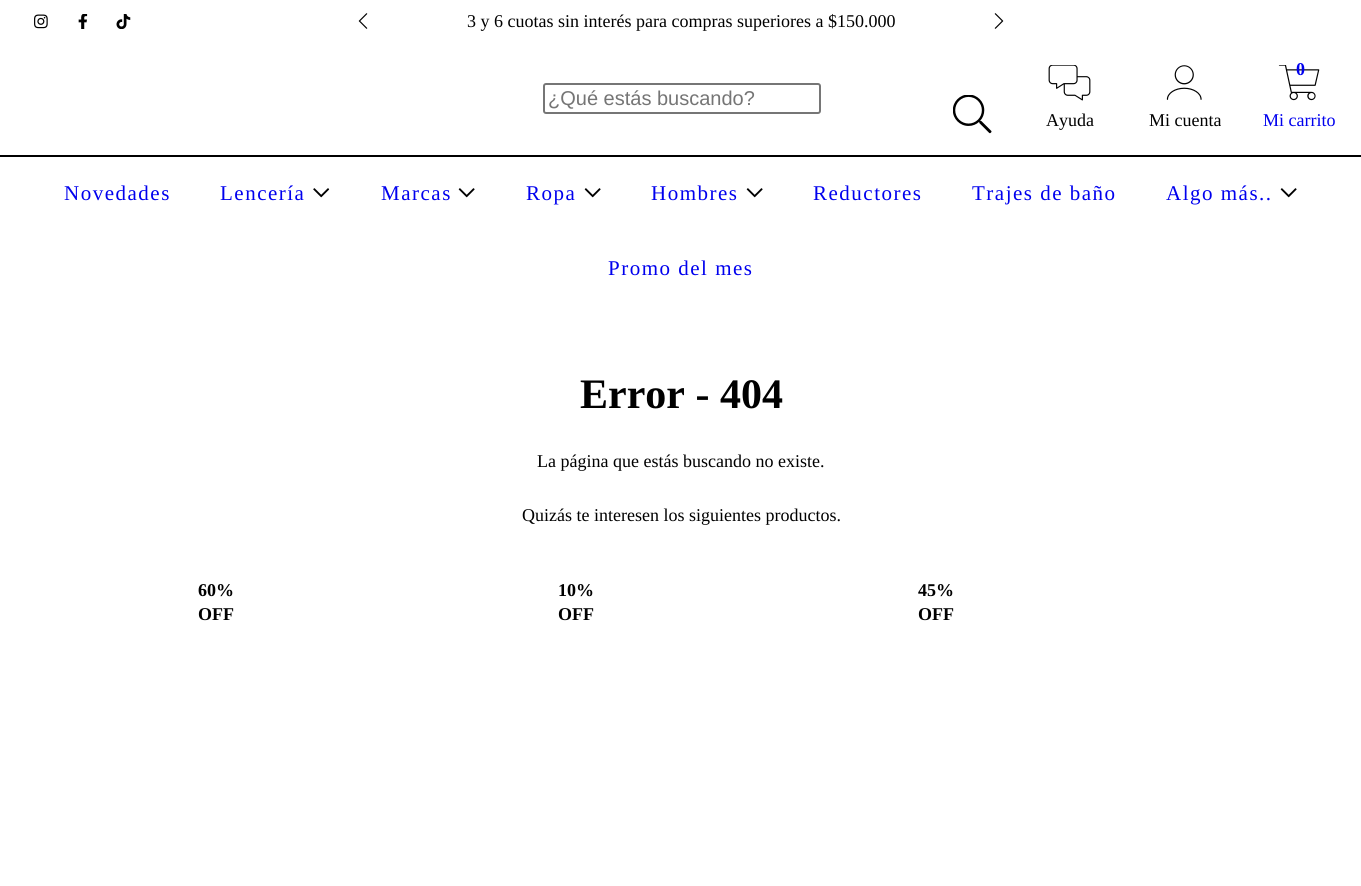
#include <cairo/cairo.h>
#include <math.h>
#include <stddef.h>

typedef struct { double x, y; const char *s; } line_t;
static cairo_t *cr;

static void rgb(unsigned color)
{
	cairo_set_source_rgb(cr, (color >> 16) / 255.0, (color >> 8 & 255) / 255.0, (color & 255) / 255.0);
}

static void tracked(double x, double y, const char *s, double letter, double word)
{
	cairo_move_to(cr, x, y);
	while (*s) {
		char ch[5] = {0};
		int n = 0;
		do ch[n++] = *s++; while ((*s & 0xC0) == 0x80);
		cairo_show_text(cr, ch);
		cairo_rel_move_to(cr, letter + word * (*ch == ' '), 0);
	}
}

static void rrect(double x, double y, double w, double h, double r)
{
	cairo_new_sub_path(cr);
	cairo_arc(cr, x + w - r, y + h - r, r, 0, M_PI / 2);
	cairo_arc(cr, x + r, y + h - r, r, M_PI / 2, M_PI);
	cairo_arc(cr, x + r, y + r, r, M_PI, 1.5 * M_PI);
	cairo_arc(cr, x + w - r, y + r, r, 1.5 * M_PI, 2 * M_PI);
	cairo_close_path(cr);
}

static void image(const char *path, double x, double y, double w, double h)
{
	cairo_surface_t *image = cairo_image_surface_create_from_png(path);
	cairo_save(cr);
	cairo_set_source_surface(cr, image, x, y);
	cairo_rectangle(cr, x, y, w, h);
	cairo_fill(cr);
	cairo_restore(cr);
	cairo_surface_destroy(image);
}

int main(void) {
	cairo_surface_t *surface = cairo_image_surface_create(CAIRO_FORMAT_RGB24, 1361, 886);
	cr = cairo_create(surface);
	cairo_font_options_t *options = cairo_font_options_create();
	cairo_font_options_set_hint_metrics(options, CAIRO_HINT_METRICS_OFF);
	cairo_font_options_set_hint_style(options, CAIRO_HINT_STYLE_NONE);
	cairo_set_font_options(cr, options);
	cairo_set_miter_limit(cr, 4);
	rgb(0xffffff);
	cairo_paint(cr);
	image("img/1.png", 34, 14, 14, 15);
	image("img/2.png", 78, 14, 10, 15);
	image("img/3.png", 116, 14, 15, 15);
	image("img/4.png", 358, 13, 10, 16);
	image("img/5.png", 994, 13, 10, 16);
	rrect(544, 84, 276, 29, 2);
	rgb(0x767676);
	cairo_stroke(cr);
	image("img/6.png", 953, 95, 39, 39);
	image("img/7.png", 1048, 65, 43, 36);
	image("img/8.png", 1166, 65, 36, 35);
	image("img/9.png", 1278, 65, 42, 36);
	rgb(0x000000);
	cairo_rectangle(cr, 0, 155, 1361, 2);
	cairo_fill(cr);
	image("img/10.png", 313, 188, 17, 10);
	image("img/11.png", 458, 188, 17, 10);
	image("img/11.png", 584, 188, 17, 10);
	image("img/11.png", 746, 188, 17, 10);
	image("img/11.png", 1280, 188, 17, 10);
	cairo_select_font_face(cr, "Liberation Serif", CAIRO_FONT_SLANT_NORMAL, CAIRO_FONT_WEIGHT_NORMAL);
	cairo_set_font_size(cr, 18);
	cairo_move_to(cr, 467, 27);
	cairo_show_text(cr, "3 y 6 cuotas sin interés para compras superiores a $150.000");
	cairo_select_font_face(cr, "Liberation Sans", CAIRO_FONT_SLANT_NORMAL, CAIRO_FONT_WEIGHT_NORMAL);
	cairo_set_font_size(cr, 20);
	rgb(0x757575);
	cairo_move_to(cr, 548, 105);
	cairo_show_text(cr, "¿Qué estás buscando?");
	cairo_select_font_face(cr, "Liberation Serif", CAIRO_FONT_SLANT_NORMAL, CAIRO_FONT_WEIGHT_NORMAL);
	cairo_set_font_size(cr, 18);
	rgb(0x000000);
	cairo_move_to(cr, 1046, 126);
	cairo_show_text(cr, "Ayuda");
	cairo_move_to(cr, 1149, 126);
	cairo_show_text(cr, "Mi cuenta");
	cairo_select_font_face(cr, "Liberation Serif", CAIRO_FONT_SLANT_NORMAL, CAIRO_FONT_WEIGHT_BOLD);
	rgb(0x0000ee);
	cairo_move_to(cr, 1296, 75);
	cairo_show_text(cr, "0");
	cairo_select_font_face(cr, "Liberation Serif", CAIRO_FONT_SLANT_NORMAL, CAIRO_FONT_WEIGHT_NORMAL);
	cairo_move_to(cr, 1263, 126);
	cairo_show_text(cr, "Mi carrito");
	cairo_set_font_size(cr, 21);
	{
		static const line_t items[] = {
			{64, 200, "Novedades"},
			{220, 200, "Lencería"},
			{381, 200, "Marcas"},
			{526, 200, "Ropa"},
			{651, 200, "Hombres"},
			{813, 200, "Reductores"},
			{972, 200, "Trajes de baño"},
			{1166, 200, "Algo más.."},
			{608, 275, "Promo del mes"},
		};
		for (size_t i = 0; i < sizeof items / sizeof *items; i++) {
			tracked(items[i].x, items[i].y, items[i].s, 1.5, 0);
		}
	}
	cairo_select_font_face(cr, "Liberation Serif", CAIRO_FONT_SLANT_NORMAL, CAIRO_FONT_WEIGHT_BOLD);
	cairo_set_font_size(cr, 42);
	rgb(0x000000);
	cairo_move_to(cr, 580, 408);
	cairo_show_text(cr, "Error - 404");
	cairo_select_font_face(cr, "Liberation Serif", CAIRO_FONT_SLANT_NORMAL, CAIRO_FONT_WEIGHT_NORMAL);
	cairo_set_font_size(cr, 18);
	cairo_move_to(cr, 537, 467);
	cairo_show_text(cr, "La página que estás buscando no existe.");
	cairo_move_to(cr, 522, 521);
	cairo_show_text(cr, "Quizás te interesen los siguientes productos.");
	cairo_select_font_face(cr, "Liberation Serif", CAIRO_FONT_SLANT_NORMAL, CAIRO_FONT_WEIGHT_BOLD);
	{
		static const line_t items[] = {
			{198, 596, "60%"},
			{198, 620, "OFF"},
			{558, 596, "10%"},
			{558, 620, "OFF"},
			{918, 596, "45%"},
			{918, 620, "OFF"},
		};
		for (size_t i = 0; i < sizeof items / sizeof *items; i++) {
			cairo_move_to(cr, items[i].x, items[i].y);
			cairo_show_text(cr, items[i].s);
		}
	}
	cairo_surface_write_to_png(surface, "page.png");
	cairo_font_options_destroy(options);
	cairo_destroy(cr);
	cairo_surface_destroy(surface);
	return 0;
}
